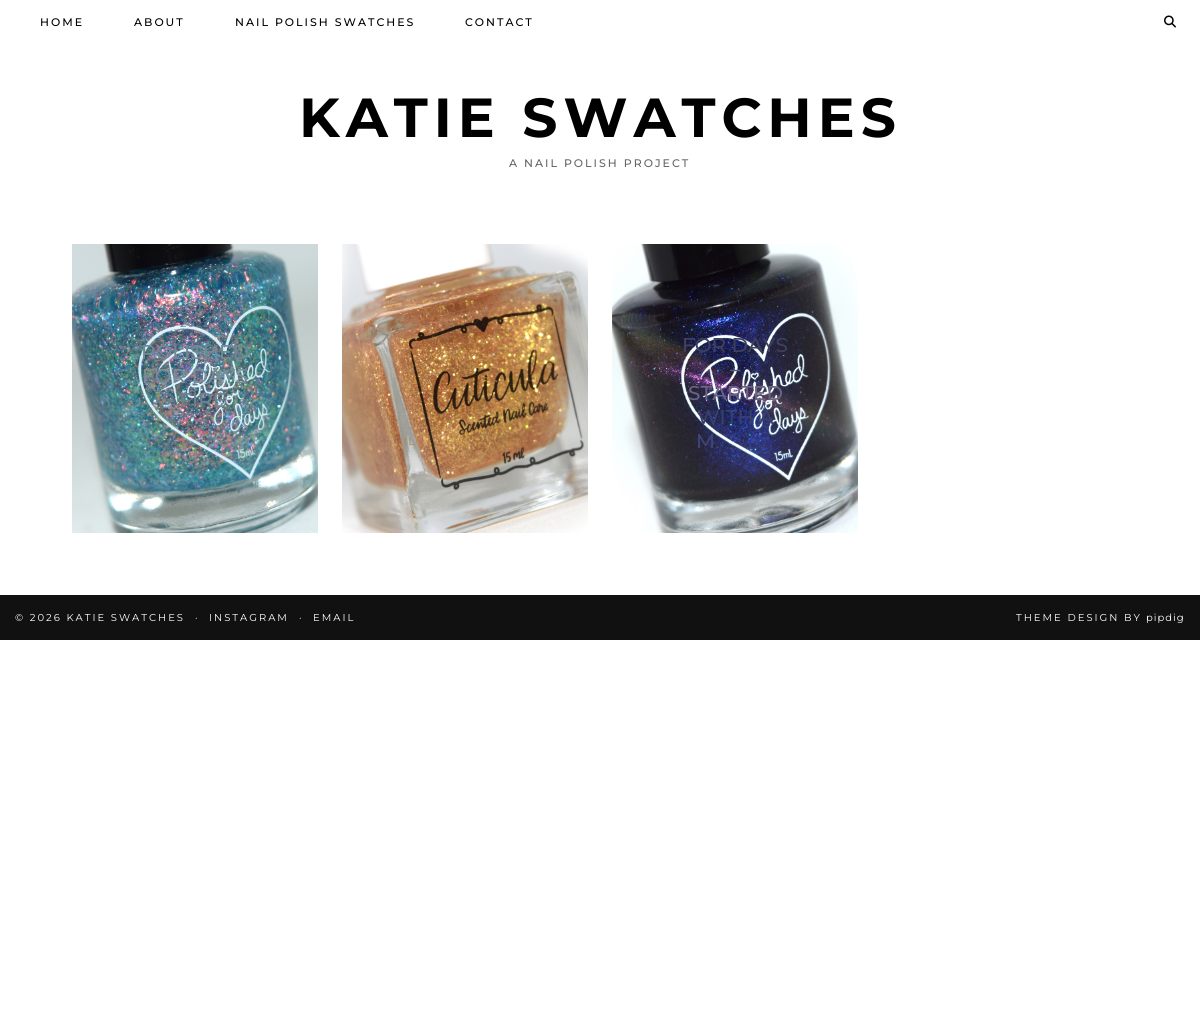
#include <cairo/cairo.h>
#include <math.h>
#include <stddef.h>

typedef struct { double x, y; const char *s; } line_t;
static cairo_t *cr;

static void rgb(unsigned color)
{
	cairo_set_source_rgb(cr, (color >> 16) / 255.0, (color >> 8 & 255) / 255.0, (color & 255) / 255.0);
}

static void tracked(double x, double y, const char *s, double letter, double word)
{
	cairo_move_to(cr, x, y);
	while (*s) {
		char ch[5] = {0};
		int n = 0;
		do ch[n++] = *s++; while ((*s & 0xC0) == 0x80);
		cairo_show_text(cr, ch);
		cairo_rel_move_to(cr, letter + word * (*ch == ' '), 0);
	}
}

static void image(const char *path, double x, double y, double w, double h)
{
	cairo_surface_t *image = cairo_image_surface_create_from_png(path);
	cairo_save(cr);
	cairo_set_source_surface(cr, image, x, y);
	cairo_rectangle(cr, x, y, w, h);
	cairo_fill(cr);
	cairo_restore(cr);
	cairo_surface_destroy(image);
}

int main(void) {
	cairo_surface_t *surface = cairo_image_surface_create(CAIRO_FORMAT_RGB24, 1200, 1021);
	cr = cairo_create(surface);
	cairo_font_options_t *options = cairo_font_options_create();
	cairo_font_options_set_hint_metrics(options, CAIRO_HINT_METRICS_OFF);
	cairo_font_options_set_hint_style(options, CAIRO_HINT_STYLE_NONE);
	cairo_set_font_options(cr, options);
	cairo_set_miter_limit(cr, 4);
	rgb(0xffffff);
	cairo_paint(cr);
	image("img/1.png", 1164, 15, 12, 13);
	image("img/2.png", 72, 244, 246, 289);
	image("img/3.png", 342, 244, 246, 289);
	image("img/4.png", 612, 244, 246, 289);
	rgb(0x111111);
	cairo_rectangle(cr, 0, 595, 1200, 45);
	cairo_fill(cr);
	cairo_select_font_face(cr, "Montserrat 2 Thin", CAIRO_FONT_SLANT_NORMAL, CAIRO_FONT_WEIGHT_NORMAL);
	cairo_set_font_size(cr, 11);
	rgb(0x000000);
	{
		static const line_t items[] = {
			{40, 26, "HOME"},
			{134, 26, "ABOUT"},
			{235, 26, "NAIL POLISH SWATCHES"},
			{465, 26, "CONTACT"},
		};
		for (size_t i = 0; i < sizeof items / sizeof *items; i++) {
			tracked(items[i].x, items[i].y, items[i].s, 2, 0);
		}
	}
	cairo_select_font_face(cr, "Montserrat Thin", CAIRO_FONT_SLANT_NORMAL, CAIRO_FONT_WEIGHT_NORMAL);
	cairo_set_font_size(cr, 55);
	tracked(299, 137, "KATIE SWATCHES", 6, 0);
	cairo_select_font_face(cr, "Montserrat 2 Thin", CAIRO_FONT_SLANT_NORMAL, CAIRO_FONT_WEIGHT_NORMAL);
	cairo_set_font_size(cr, 11);
	rgb(0x666666);
	tracked(509, 167, "A NAIL POLISH PROJECT", 2, 0);
	cairo_select_font_face(cr, "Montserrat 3 Thin", CAIRO_FONT_SLANT_NORMAL, CAIRO_FONT_WEIGHT_NORMAL);
	rgb(0x70798d);
	tracked(154, 313, "JANUARY 23", 1, 0);
	rgb(0x6a7f95);
	tracked(180, 327, "2022", 1, 0);
	cairo_select_font_face(cr, "Montserrat 2 Thin", CAIRO_FONT_SLANT_NORMAL, CAIRO_FONT_WEIGHT_NORMAL);
	cairo_set_font_size(cr, 20);
	rgb(0x728897);
	cairo_move_to(cr, 141, 359);
	cairo_show_text(cr, "POLISHED");
	rgb(0x788d99);
	cairo_move_to(cr, 142, 383);
	cairo_show_text(cr, "FOR DAYS");
	rgb(0x6e828f);
	cairo_move_to(cr, 164, 407);
	cairo_show_text(cr, "– FIRE");
	cairo_select_font_face(cr, "Montserrat 3 Thin", CAIRO_FONT_SLANT_NORMAL, CAIRO_FONT_WEIGHT_NORMAL);
	cairo_set_font_size(cr, 11);
	rgb(0xb28356);
	tracked(404, 445, "IL", 1, 0);
	cairo_select_font_face(cr, "Montserrat 2 Thin", CAIRO_FONT_SLANT_NORMAL, CAIRO_FONT_WEIGHT_NORMAL);
	cairo_set_font_size(cr, 20);
	rgb(0x3d4061);
	cairo_move_to(cr, 682, 352);
	cairo_show_text(cr, "FOR DAYS");
	rgb(0x595e7b);
	cairo_move_to(cr, 730, 376);
	cairo_show_text(cr, "–");
	rgb(0x696481);
	cairo_move_to(cr, 688, 400);
	cairo_show_text(cr, "STARTED");
	rgb(0x38406f);
	cairo_move_to(cr, 697, 424);
	cairo_show_text(cr, "WITH A");
	rgb(0x3e4578);
	cairo_move_to(cr, 696, 448);
	cairo_show_text(cr, "M");
	cairo_select_font_face(cr, "Montserrat 3 Thin", CAIRO_FONT_SLANT_NORMAL, CAIRO_FONT_WEIGHT_NORMAL);
	cairo_set_font_size(cr, 10);
	rgb(0xffffff);
	{
		static const line_t items[] = {
			{15, 621, "© 2026 KATIE SWATCHES"},
			{195, 621, "·"},
			{209, 621, "INSTAGRAM"},
			{299, 621, "·"},
			{313, 621, "EMAIL"},
			{1016, 621, "THEME DESIGN BY"},
		};
		for (size_t i = 0; i < sizeof items / sizeof *items; i++) {
			tracked(items[i].x, items[i].y, items[i].s, 2, 0);
		}
	}
	tracked(1146, 621, "pipdig", 1, 0);
	cairo_surface_write_to_png(surface, "page.png");
	cairo_font_options_destroy(options);
	cairo_destroy(cr);
	cairo_surface_destroy(surface);
	return 0;
}
